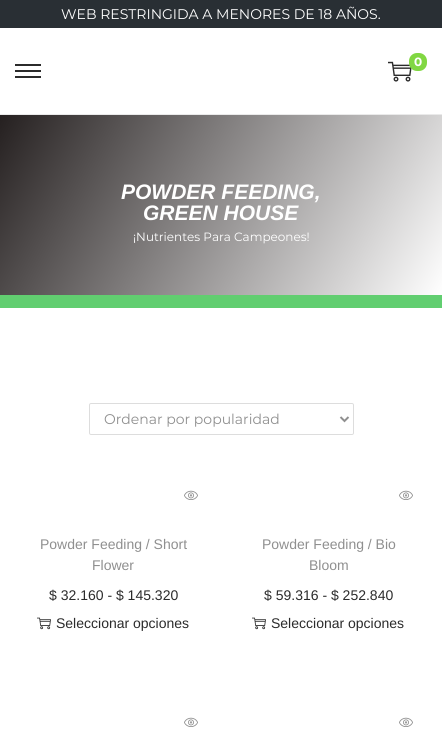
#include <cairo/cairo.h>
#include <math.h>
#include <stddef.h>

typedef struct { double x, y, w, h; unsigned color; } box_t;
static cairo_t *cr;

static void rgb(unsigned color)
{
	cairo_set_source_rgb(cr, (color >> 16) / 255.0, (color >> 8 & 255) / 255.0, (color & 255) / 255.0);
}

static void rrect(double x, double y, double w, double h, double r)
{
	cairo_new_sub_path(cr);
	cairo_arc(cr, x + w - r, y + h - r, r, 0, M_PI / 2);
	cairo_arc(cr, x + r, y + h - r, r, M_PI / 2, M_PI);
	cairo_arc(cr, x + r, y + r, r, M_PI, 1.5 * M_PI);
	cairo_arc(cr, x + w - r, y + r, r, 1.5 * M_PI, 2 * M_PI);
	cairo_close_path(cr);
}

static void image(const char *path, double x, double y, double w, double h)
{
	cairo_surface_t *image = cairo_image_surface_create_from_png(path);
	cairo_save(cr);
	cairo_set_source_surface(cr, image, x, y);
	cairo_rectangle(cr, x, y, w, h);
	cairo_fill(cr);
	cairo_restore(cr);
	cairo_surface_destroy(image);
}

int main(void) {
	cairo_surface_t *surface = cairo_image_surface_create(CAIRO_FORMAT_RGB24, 442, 734);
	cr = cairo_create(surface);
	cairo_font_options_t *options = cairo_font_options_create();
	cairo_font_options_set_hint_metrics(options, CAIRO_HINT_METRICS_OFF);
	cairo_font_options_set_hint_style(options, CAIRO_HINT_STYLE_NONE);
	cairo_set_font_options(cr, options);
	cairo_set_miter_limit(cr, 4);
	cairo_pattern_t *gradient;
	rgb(0xffffff);
	cairo_paint(cr);
	rgb(0x292f34);
	cairo_rectangle(cr, 0, 0, 442, 28);
	cairo_fill(cr);
	rgb(0xeaeaea);
	cairo_rectangle(cr, 0, 114, 442, 1);
	cairo_fill(cr);
	image("img/1.png", 388, 61, 24, 21);
	rgb(0x81d742);
	rrect(409, 53, 18, 18, 8);
	cairo_fill(cr);
	{
		static const box_t items[] = {
			{15, 70, 26, 2, 0x2b2b2b},
			{15, 64, 26, 2, 0x2b2b2b},
			{15, 76, 26, 2, 0x2b2b2b},
			{0, 295, 442, 13, 0x61ce70},
		};
		for (size_t i = 0; i < sizeof items / sizeof *items; i++) {
			rgb(items[i].color);
			cairo_rectangle(cr, items[i].x, items[i].y, items[i].w, items[i].h);
			cairo_fill(cr);
		}
	}
	gradient = cairo_pattern_create_linear(16, 87, 426, 323);
	cairo_pattern_add_color_stop_rgba(gradient, 0, 0.145, 0.125, 0.125, 1);
	cairo_pattern_add_color_stop_rgba(gradient, 1, 1, 1, 1, 1);
	cairo_set_source(cr, gradient);
	cairo_pattern_destroy(gradient);
	cairo_rectangle(cr, 0, 115, 442, 180);
	cairo_fill(cr);
	rrect(89.5, 403.5, 264, 31, 1.5);
	rgb(0xdddddd);
	cairo_set_line_width(cr, 1);
	cairo_stroke(cr);
	cairo_new_path(cr);
	cairo_move_to(cr, 340.5, 417);
	cairo_line_to(cr, 344.5, 421);
	cairo_line_to(cr, 348.5, 417);
	rgb(0x8f8f8f);
	cairo_set_line_width(cr, 2);
	cairo_stroke(cr);
	image("img/2.png", 184, 490, 14, 10);
	image("img/3.png", 37, 617, 14, 13);
	image("img/2.png", 399, 490, 14, 10);
	image("img/3.png", 252, 617, 14, 13);
	image("img/2.png", 184, 717, 14, 10);
	image("img/2.png", 399, 717, 14, 10);
	cairo_select_font_face(cr, "Montserrat", CAIRO_FONT_SLANT_NORMAL, CAIRO_FONT_WEIGHT_NORMAL);
	cairo_set_font_size(cr, 14);
	rgb(0xffffff);
	cairo_move_to(cr, 61, 19);
	cairo_show_text(cr, "WEB RESTRINGIDA A MENORES DE 18 AÑOS.");
	cairo_select_font_face(cr, "Montserrat", CAIRO_FONT_SLANT_NORMAL, CAIRO_FONT_WEIGHT_BOLD);
	cairo_set_font_size(cr, 12);
	cairo_move_to(cr, 414, 66);
	cairo_show_text(cr, "0");
	cairo_select_font_face(cr, "Liberation Sans", CAIRO_FONT_SLANT_ITALIC, CAIRO_FONT_WEIGHT_BOLD);
	cairo_set_font_size(cr, 21);
	cairo_move_to(cr, 121, 199);
	cairo_show_text(cr, "POWDER FEEDING,");
	cairo_move_to(cr, 143, 220);
	cairo_show_text(cr, "GREEN HOUSE");
	cairo_select_font_face(cr, "Montserrat", CAIRO_FONT_SLANT_NORMAL, CAIRO_FONT_WEIGHT_NORMAL);
	cairo_set_font_size(cr, 12);
	cairo_move_to(cr, 133, 241);
	cairo_show_text(cr, "¡Nutrientes Para Campeones!");
	cairo_set_font_size(cr, 14);
	rgb(0x8f8f8f);
	cairo_move_to(cr, 104, 424);
	cairo_show_text(cr, "Ordenar por popularidad");
	cairo_select_font_face(cr, "Liberation Sans", CAIRO_FONT_SLANT_NORMAL, CAIRO_FONT_WEIGHT_NORMAL);
	cairo_move_to(cr, 40, 549);
	cairo_show_text(cr, "Powder Feeding / Short");
	cairo_move_to(cr, 92, 570);
	cairo_show_text(cr, "Flower");
	rgb(0x2b2b2b);
	cairo_move_to(cr, 49, 600);
	cairo_show_text(cr, "$ 32.160 - $ 145.320");
	cairo_move_to(cr, 56, 628);
	cairo_show_text(cr, "Seleccionar opciones");
	rgb(0x8f8f8f);
	cairo_move_to(cr, 262, 549);
	cairo_show_text(cr, "Powder Feeding / Bio");
	cairo_move_to(cr, 309, 570);
	cairo_show_text(cr, "Bloom");
	rgb(0x2b2b2b);
	cairo_move_to(cr, 264, 600);
	cairo_show_text(cr, "$ 59.316 - $ 252.840");
	cairo_move_to(cr, 271, 628);
	cairo_show_text(cr, "Seleccionar opciones");
	cairo_surface_write_to_png(surface, "page.png");
	cairo_font_options_destroy(options);
	cairo_destroy(cr);
	cairo_surface_destroy(surface);
	return 0;
}
